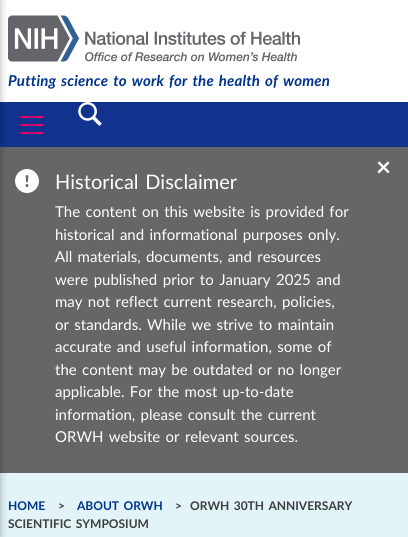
#include <cairo/cairo.h>
#include <math.h>
#include <stddef.h>

typedef struct { double x, y; const char *s; } line_t;
static cairo_t *cr;

static void rgb(unsigned color)
{
	cairo_set_source_rgb(cr, (color >> 16) / 255.0, (color >> 8 & 255) / 255.0, (color & 255) / 255.0);
}

static void tracked(double x, double y, const char *s, double letter, double word)
{
	cairo_move_to(cr, x, y);
	while (*s) {
		char ch[5] = {0};
		int n = 0;
		do ch[n++] = *s++; while ((*s & 0xC0) == 0x80);
		cairo_show_text(cr, ch);
		cairo_rel_move_to(cr, letter + word * (*ch == ' '), 0);
	}
}

static void rrect(double x, double y, double w, double h, double r)
{
	cairo_new_sub_path(cr);
	cairo_arc(cr, x + w - r, y + h - r, r, 0, M_PI / 2);
	cairo_arc(cr, x + r, y + h - r, r, M_PI / 2, M_PI);
	cairo_arc(cr, x + r, y + r, r, M_PI, 1.5 * M_PI);
	cairo_arc(cr, x + w - r, y + r, r, 1.5 * M_PI, 2 * M_PI);
	cairo_close_path(cr);
}

static void soft_shadow(double x, double y, double w, double h, double r, double blur, double alpha)
{
	cairo_push_group_with_content(cr, CAIRO_CONTENT_ALPHA);
	cairo_set_operator(cr, CAIRO_OPERATOR_SOURCE);
	for (int i = 15; i >= -15 && fmin(w, h) + blur * i / 3 > 0; i -= 2) {
		double e = blur * i / 6;
		cairo_set_source_rgba(cr, 0, 0, 0, alpha * erfc((i - 1) / 8.5) / 2);
		rrect(x - e, y - e, w + 2 * e, h + 2 * e, fmax(0, fmin(r + e + blur * .6, fmin(w, h) / 2 + e)));
		cairo_fill(cr);
	}
	cairo_pattern_t *soft = cairo_pop_group(cr);
	cairo_mask(cr, soft);
	cairo_pattern_destroy(soft);
}

static void image(const char *path, double x, double y, double w, double h)
{
	cairo_surface_t *image = cairo_image_surface_create_from_png(path);
	cairo_save(cr);
	cairo_set_source_surface(cr, image, x, y);
	cairo_rectangle(cr, x, y, w, h);
	cairo_fill(cr);
	cairo_restore(cr);
	cairo_surface_destroy(image);
}

int main(void) {
	cairo_surface_t *surface = cairo_image_surface_create(CAIRO_FORMAT_RGB24, 408, 537);
	cr = cairo_create(surface);
	cairo_font_options_t *options = cairo_font_options_create();
	cairo_font_options_set_hint_metrics(options, CAIRO_HINT_METRICS_OFF);
	cairo_font_options_set_hint_style(options, CAIRO_HINT_STYLE_NONE);
	cairo_set_font_options(cr, options);
	cairo_set_miter_limit(cr, 4);
	rgb(0xffffff);
	cairo_paint(cr);
	rgb(0x11338d);
	cairo_rectangle(cr, 0, 102, 408, 45);
	cairo_fill(cr);
	image("img/3.png", 8, 15, 292, 47);
	rgb(0x666666);
	cairo_rectangle(cr, 0, 147, 408, 326);
	cairo_fill(cr);
	rgb(0xe2f4f7);
	cairo_rectangle(cr, 0, 473, 408, 64);
	cairo_fill(cr);
	rgb(0x000000);
	soft_shadow(-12, 0, 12, 537, 0, 4, 0.3);
	image("img/1.png", 20, 116, 24, 18);
	image("img/2.png", 78, 102, 24, 24);
	image("img/4.png", 15, 169, 24, 24);
	cairo_select_font_face(cr, "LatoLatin", CAIRO_FONT_SLANT_ITALIC, CAIRO_FONT_WEIGHT_BOLD);
	cairo_set_font_size(cr, 15);
	rgb(0x00338d);
	tracked(8, 86, "Putting science to work for the health of women", 0.15, 1.5);
	cairo_select_font_face(cr, "LatoLatin", CAIRO_FONT_SLANT_NORMAL, CAIRO_FONT_WEIGHT_BOLD);
	cairo_set_font_size(cr, 26);
	rgb(0xffffff);
	cairo_move_to(cr, 376, 176);
	cairo_show_text(cr, "×");
	cairo_select_font_face(cr, "LatoLatin", CAIRO_FONT_SLANT_NORMAL, CAIRO_FONT_WEIGHT_NORMAL);
	cairo_set_font_size(cr, 20);
	tracked(55, 189, "Historical Disclaimer", 0, 1.5);
	cairo_set_font_size(cr, 15);
	{
		static const line_t items[] = {
			{55, 217, "The content on this website is provided for"},
			{55, 240, "historical and informational purposes only."},
			{55, 262, "All materials, documents, and resources"},
		};
		for (size_t i = 0; i < sizeof items / sizeof *items; i++) {
			tracked(items[i].x, items[i].y, items[i].s, 0, 1.5);
		}
	}
	tracked(55, 285, "were published prior to January 2025 and", 0, 1.75);
	{
		static const line_t items[] = {
			{55, 307, "may not reflect current research, policies,"},
			{55, 330, "or standards. While we strive to maintain"},
			{55, 352, "accurate and useful information, some of"},
			{55, 375, "the content may be outdated or no longer"},
			{55, 397, "applicable. For the most up-to-date"},
			{55, 420, "information, please consult the current"},
			{55, 442, "ORWH website or relevant sources."},
		};
		for (size_t i = 0; i < sizeof items / sizeof *items; i++) {
			tracked(items[i].x, items[i].y, items[i].s, 0, 1.5);
		}
	}
	cairo_select_font_face(cr, "LatoLatin", CAIRO_FONT_SLANT_NORMAL, CAIRO_FONT_WEIGHT_BOLD);
	cairo_set_font_size(cr, 12);
	rgb(0x00338d);
	cairo_move_to(cr, 8, 510);
	cairo_show_text(cr, "HOME");
	rgb(0x3d3d3d);
	cairo_move_to(cr, 58, 510);
	cairo_show_text(cr, ">");
	rgb(0x00338d);
	tracked(77, 510, "ABOUT ORWH", 0, 1.5);
	rgb(0x3d3d3d);
	cairo_move_to(cr, 175, 510);
	cairo_show_text(cr, ">");
	tracked(190, 510, "ORWH 30TH ANNIVERSARY", 0, 1.5);
	tracked(8, 528, "SCIENTIFIC SYMPOSIUM", 0, 1.5);
	cairo_surface_write_to_png(surface, "page.png");
	cairo_font_options_destroy(options);
	cairo_destroy(cr);
	cairo_surface_destroy(surface);
	return 0;
}
